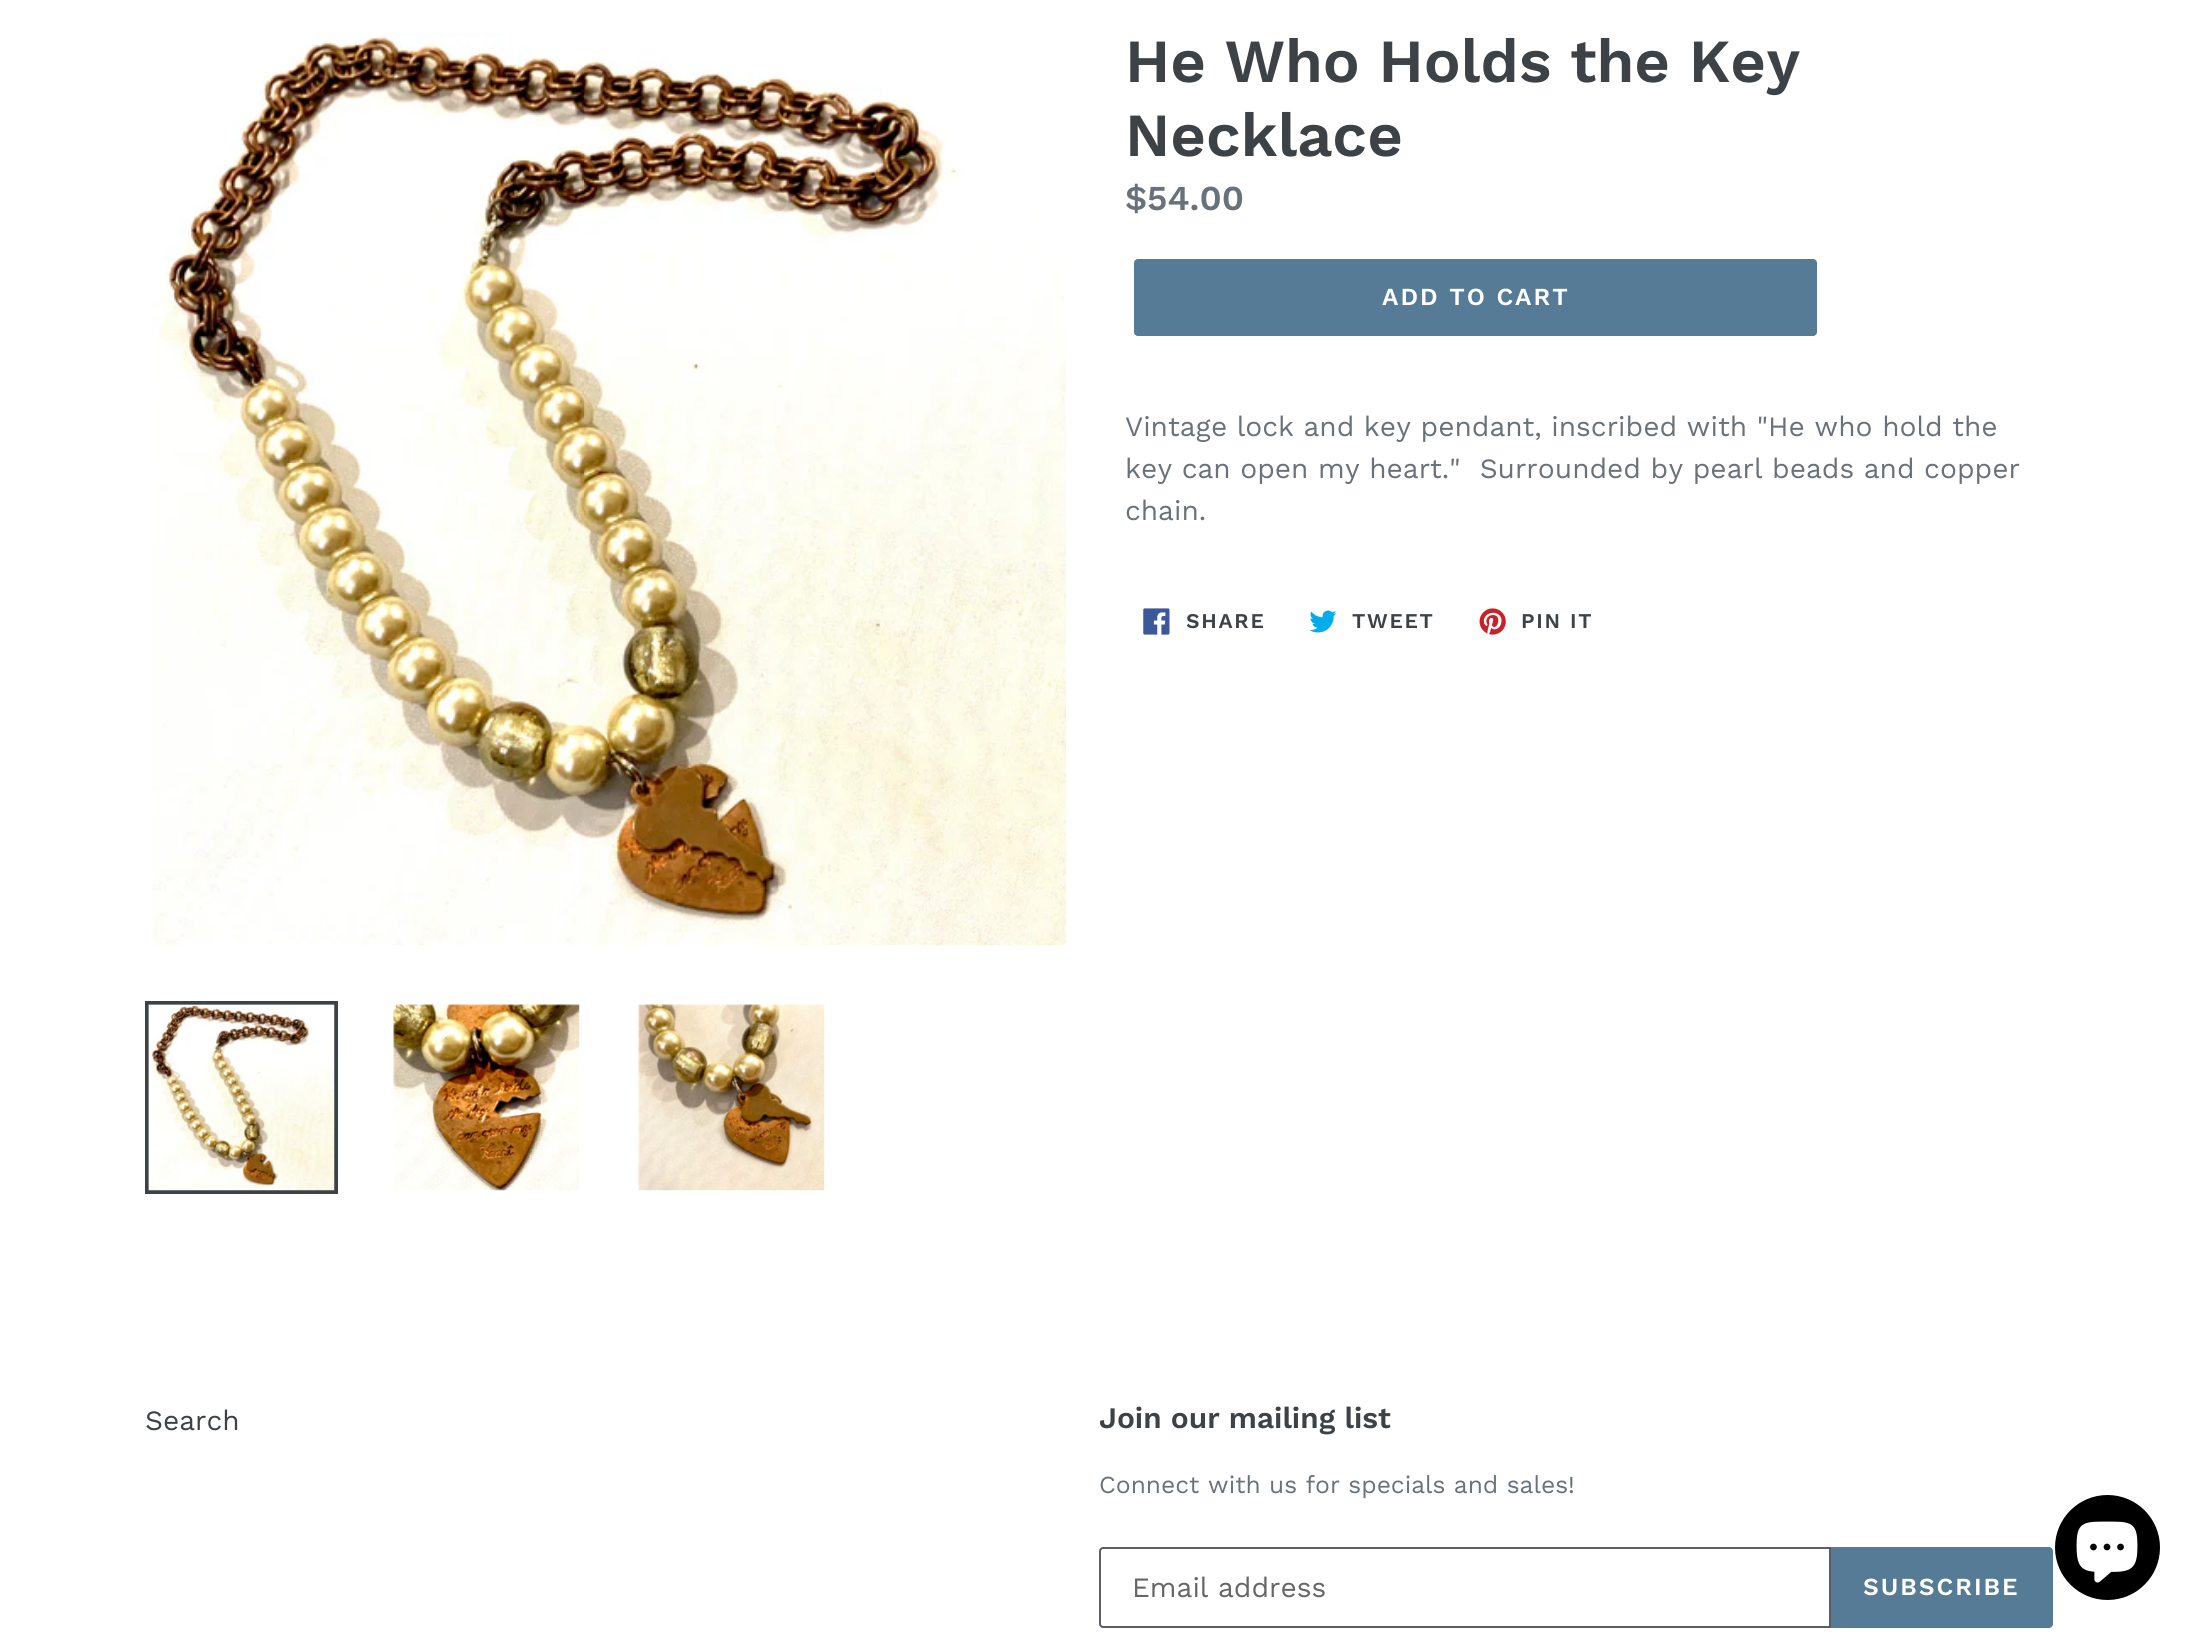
#include <cairo/cairo.h>
#include <math.h>
#include <stddef.h>

typedef struct { double x, y; const char *s; } line_t;
static cairo_t *cr;

static void rgb(unsigned color)
{
	cairo_set_source_rgb(cr, (color >> 16) / 255.0, (color >> 8 & 255) / 255.0, (color & 255) / 255.0);
}

static void tracked(double x, double y, const char *s, double letter, double word)
{
	cairo_move_to(cr, x, y);
	while (*s) {
		char ch[5] = {0};
		int n = 0;
		do ch[n++] = *s++; while ((*s & 0xC0) == 0x80);
		cairo_show_text(cr, ch);
		cairo_rel_move_to(cr, letter + word * (*ch == ' '), 0);
	}
}

static void rrect(double x, double y, double w, double h, double r)
{
	cairo_new_sub_path(cr);
	cairo_arc(cr, x + w - r, y + h - r, r, 0, M_PI / 2);
	cairo_arc(cr, x + r, y + h - r, r, M_PI / 2, M_PI);
	cairo_arc(cr, x + r, y + r, r, M_PI, 1.5 * M_PI);
	cairo_arc(cr, x + w - r, y + r, r, 1.5 * M_PI, 2 * M_PI);
	cairo_close_path(cr);
}

static void image(const char *path, double x, double y, double w, double h)
{
	cairo_surface_t *image = cairo_image_surface_create_from_png(path);
	cairo_save(cr);
	cairo_set_source_surface(cr, image, x, y);
	cairo_rectangle(cr, x, y, w, h);
	cairo_fill(cr);
	cairo_restore(cr);
	cairo_surface_destroy(image);
}

int main(void) {
	cairo_surface_t *surface = cairo_image_surface_create(CAIRO_FORMAT_RGB24, 2198, 1635);
	cr = cairo_create(surface);
	cairo_font_options_t *options = cairo_font_options_create();
	cairo_font_options_set_hint_metrics(options, CAIRO_HINT_METRICS_OFF);
	cairo_font_options_set_hint_style(options, CAIRO_HINT_STYLE_NONE);
	cairo_set_font_options(cr, options);
	cairo_set_miter_limit(cr, 4);
	rgb(0xffffff);
	cairo_paint(cr);
	image("img/1.png", 152, 32, 914, 913);
	cairo_rectangle(cr, 147, 1003, 189, 189);
	rgb(0x3d4246);
	cairo_set_line_width(cr, 4);
	cairo_stroke(cr);
	image("img/2.png", 148, 1004, 187, 187);
	image("img/3.png", 393, 1004, 187, 187);
	image("img/4.png", 638, 1004, 187, 187);
	rgb(0x557b97);
	rrect(1134, 259, 683, 77, 4);
	cairo_fill(cr);
	image("img/5.png", 1143, 608, 27, 27);
	image("img/6.png", 1309, 610, 28, 23);
	image("img/7.png", 1479, 608, 27, 27);
	cairo_new_path(cr);
	cairo_move_to(cr, 1103, 1548);
	cairo_line_to(cr, 1830, 1548);
	cairo_line_to(cr, 1830, 1627);
	cairo_line_to(cr, 1103, 1627);
	cairo_curve_to(cr, 1101.5, 1627, 1100, 1625.5, 1100, 1624);
	cairo_line_to(cr, 1100, 1551);
	cairo_curve_to(cr, 1100, 1549.5, 1101.5, 1548, 1103, 1548);
	cairo_close_path(cr);
	rgb(0x5a5e62);
	cairo_set_line_width(cr, 2);
	cairo_stroke(cr);
	rgb(0x557b97);
	cairo_new_path(cr);
	cairo_move_to(cr, 1831, 1547);
	cairo_line_to(cr, 2049, 1547);
	cairo_curve_to(cr, 2051, 1547, 2053, 1549, 2053, 1551);
	cairo_line_to(cr, 2053, 1624);
	cairo_curve_to(cr, 2053, 1626, 2051, 1628, 2049, 1628);
	cairo_line_to(cr, 1831, 1628);
	cairo_close_path(cr);
	cairo_fill(cr);
	rgb(0x000000);
	cairo_arc(cr, 2107.5, 1547.5, 52.5, 0, 2 * M_PI);
	cairo_fill(cr);
	image("img/8.png", 2076, 1521, 62, 62);
	cairo_select_font_face(cr, "Work Sans SemiBold", CAIRO_FONT_SLANT_NORMAL, CAIRO_FONT_WEIGHT_NORMAL);
	cairo_set_font_size(cr, 61.25);
	rgb(0x3d4246);
	cairo_move_to(cr, 1125, 82);
	cairo_show_text(cr, "He Who Holds the Key");
	cairo_move_to(cr, 1125, 156);
	cairo_show_text(cr, "Necklace");
	cairo_set_font_size(cr, 35);
	rgb(0x69727b);
	cairo_move_to(cr, 1125, 210);
	cairo_show_text(cr, "$54.00");
	cairo_set_font_size(cr, 24.5);
	rgb(0xffffff);
	tracked(1382, 305, "ADD TO CART", 2, 0);
	cairo_select_font_face(cr, "Work Sans", CAIRO_FONT_SLANT_NORMAL, CAIRO_FONT_WEIGHT_NORMAL);
	cairo_set_font_size(cr, 28);
	rgb(0x69727b);
	{
		static const line_t items[] = {
			{1125, 436, "Vintage lock and key pendant, inscribed with \"He who hold the"},
			{1125, 478, "key can open my heart.\"  Surrounded by pearl beads and copper"},
			{1125, 520, "chain."},
		};
		for (size_t i = 0; i < sizeof items / sizeof *items; i++) {
			cairo_move_to(cr, items[i].x, items[i].y);
			cairo_show_text(cr, items[i].s);
		}
	}
	cairo_select_font_face(cr, "Work Sans SemiBold", CAIRO_FONT_SLANT_NORMAL, CAIRO_FONT_WEIGHT_NORMAL);
	cairo_set_font_size(cr, 21);
	rgb(0x3d4246);
	{
		static const line_t items[] = {
			{1186, 628, "SHARE"},
			{1352, 628, "TWEET"},
			{1521, 628, "PIN IT"},
		};
		for (size_t i = 0; i < sizeof items / sizeof *items; i++) {
			tracked(items[i].x, items[i].y, items[i].s, 1.75, 0);
		}
	}
	cairo_select_font_face(cr, "Work Sans", CAIRO_FONT_SLANT_NORMAL, CAIRO_FONT_WEIGHT_NORMAL);
	cairo_set_font_size(cr, 28);
	cairo_move_to(cr, 145, 1430);
	cairo_show_text(cr, "Search");
	cairo_select_font_face(cr, "Work Sans SemiBold", CAIRO_FONT_SLANT_NORMAL, CAIRO_FONT_WEIGHT_NORMAL);
	cairo_set_font_size(cr, 29.75);
	cairo_move_to(cr, 1099, 1428);
	cairo_show_text(cr, "Join our mailing list");
	cairo_select_font_face(cr, "Work Sans", CAIRO_FONT_SLANT_NORMAL, CAIRO_FONT_WEIGHT_NORMAL);
	cairo_set_font_size(cr, 24.5);
	rgb(0x69727b);
	cairo_move_to(cr, 1099, 1493);
	cairo_show_text(cr, "Connect with us for specials and sales!");
	cairo_set_font_size(cr, 28);
	rgb(0x666666);
	cairo_move_to(cr, 1132, 1597);
	cairo_show_text(cr, "Email address");
	cairo_select_font_face(cr, "Work Sans SemiBold", CAIRO_FONT_SLANT_NORMAL, CAIRO_FONT_WEIGHT_NORMAL);
	cairo_set_font_size(cr, 24.5);
	rgb(0xffffff);
	tracked(1863, 1595, "SUBSCRIBE", 2, 0);
	cairo_surface_write_to_png(surface, "page.png");
	cairo_font_options_destroy(options);
	cairo_destroy(cr);
	cairo_surface_destroy(surface);
	return 0;
}
